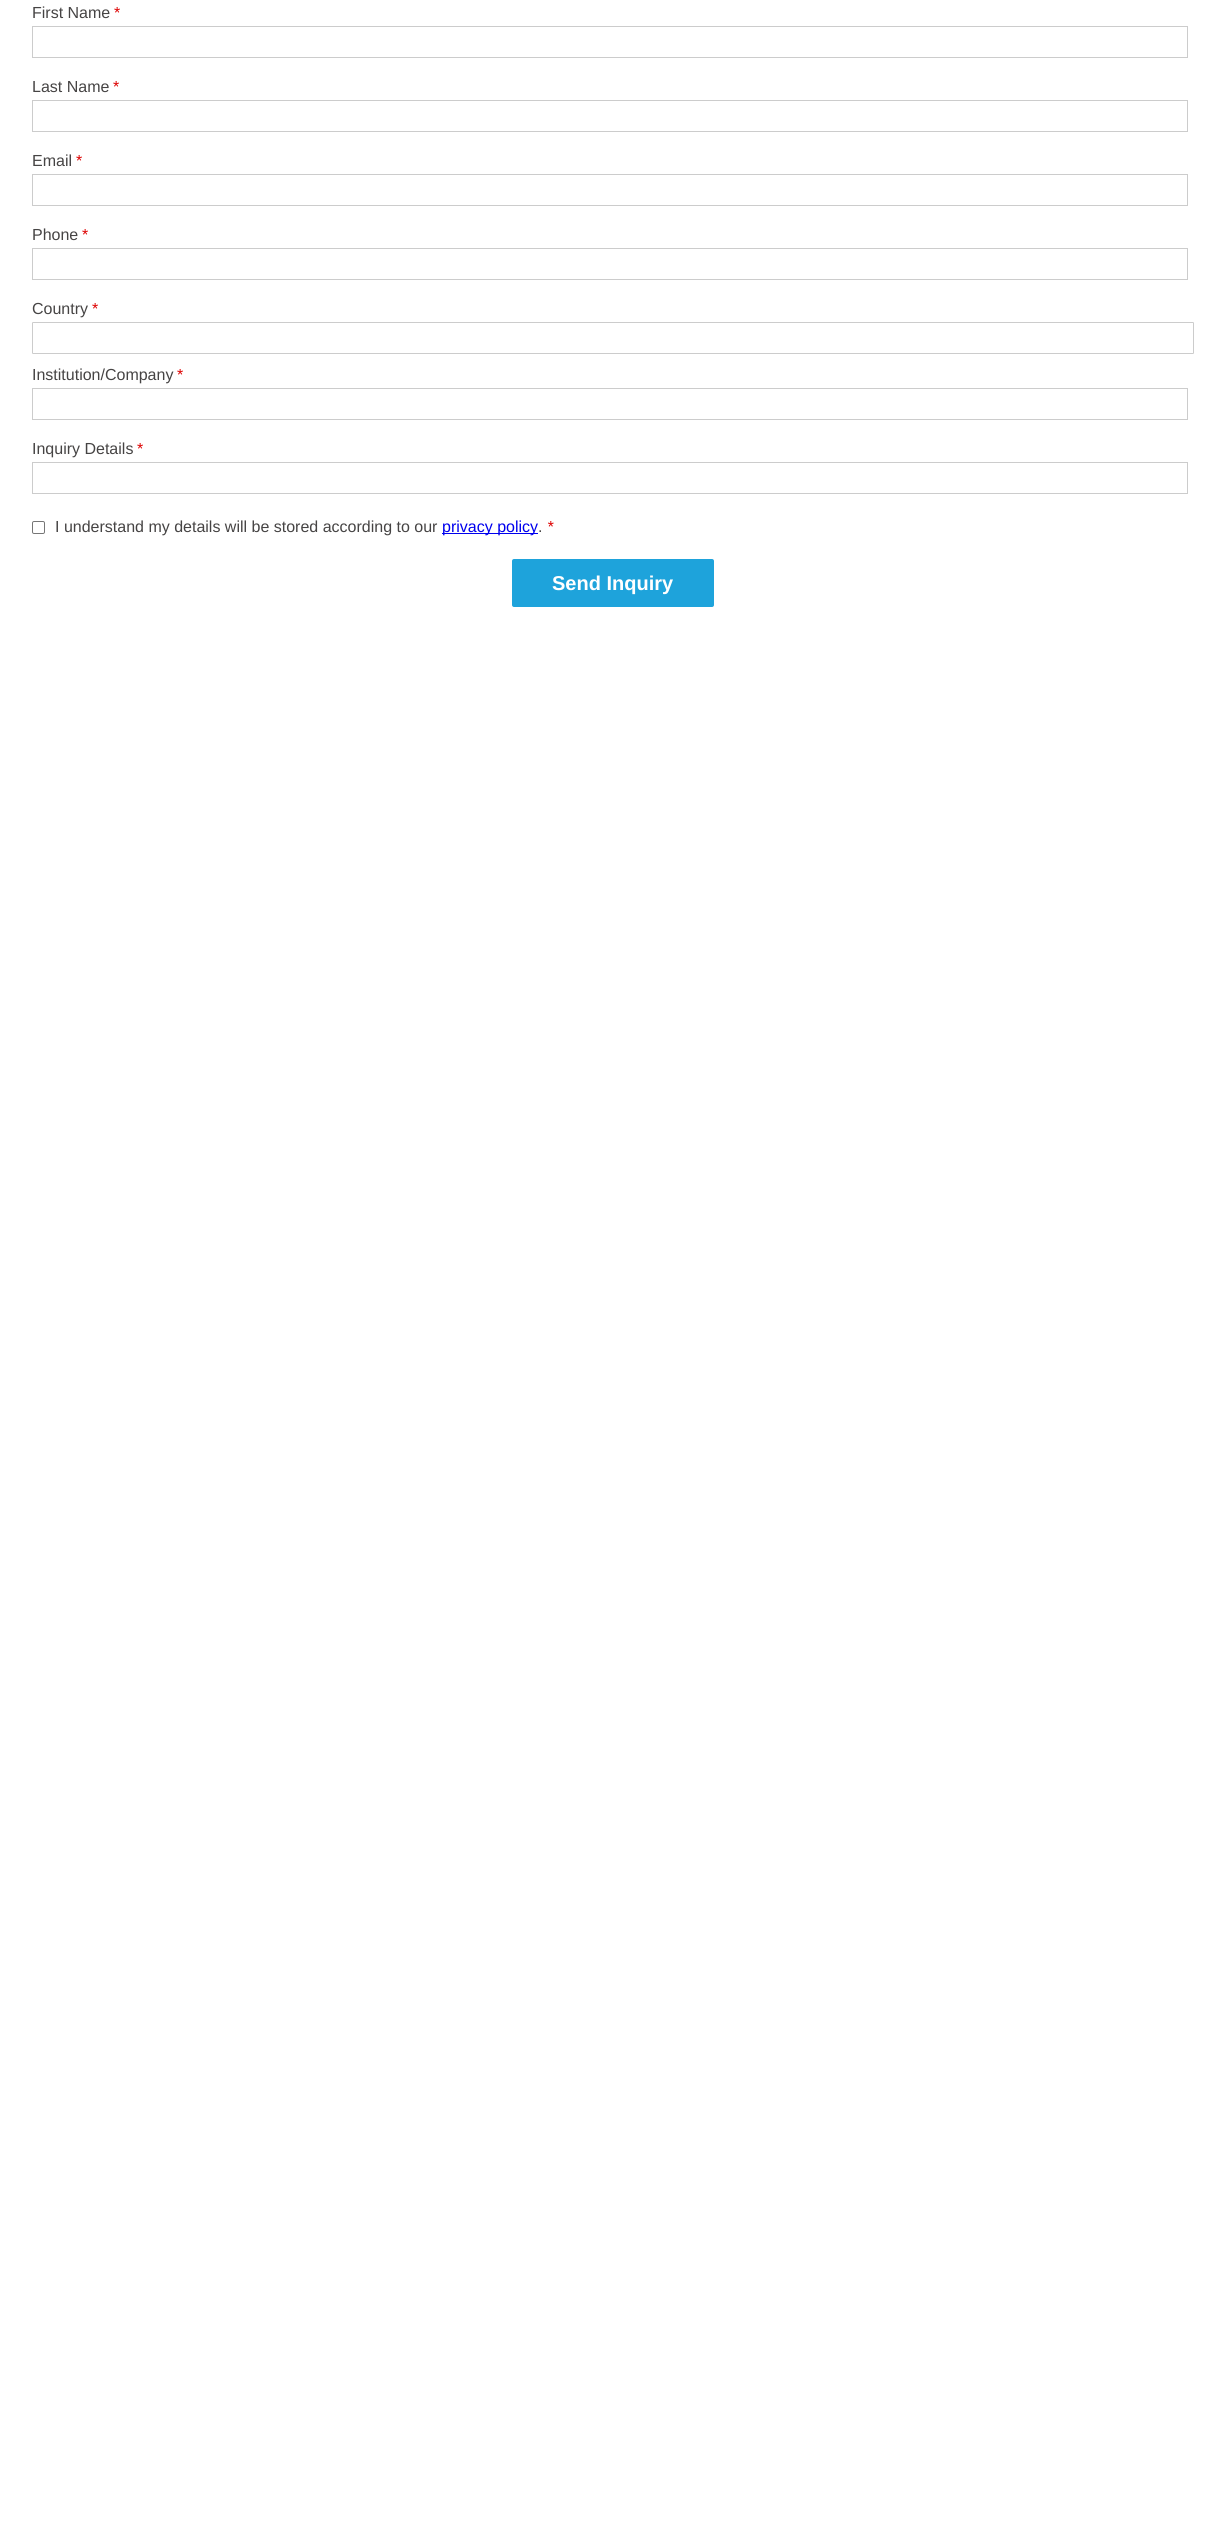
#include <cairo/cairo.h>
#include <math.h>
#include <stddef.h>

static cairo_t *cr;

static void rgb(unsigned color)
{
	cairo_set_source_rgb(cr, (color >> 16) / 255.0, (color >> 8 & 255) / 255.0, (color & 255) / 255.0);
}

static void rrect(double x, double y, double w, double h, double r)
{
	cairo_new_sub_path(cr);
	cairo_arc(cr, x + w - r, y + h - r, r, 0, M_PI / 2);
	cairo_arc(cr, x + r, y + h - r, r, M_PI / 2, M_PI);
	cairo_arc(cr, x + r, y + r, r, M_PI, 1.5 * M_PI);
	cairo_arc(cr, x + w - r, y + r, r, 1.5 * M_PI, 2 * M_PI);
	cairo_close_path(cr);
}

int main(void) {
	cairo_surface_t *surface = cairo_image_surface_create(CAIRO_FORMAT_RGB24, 1226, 2523);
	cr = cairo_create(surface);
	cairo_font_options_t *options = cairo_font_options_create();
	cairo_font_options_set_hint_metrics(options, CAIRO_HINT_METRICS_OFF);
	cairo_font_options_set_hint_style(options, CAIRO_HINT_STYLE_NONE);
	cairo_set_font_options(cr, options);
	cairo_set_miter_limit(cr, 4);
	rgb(0xffffff);
	cairo_paint(cr);
	cairo_rectangle(cr, 32.5, 26.5, 1155, 31);
	rgb(0xcccccc);
	cairo_set_line_width(cr, 1);
	cairo_stroke(cr);
	cairo_rectangle(cr, 32.5, 100.5, 1155, 31);
	cairo_stroke(cr);
	cairo_rectangle(cr, 32.5, 174.5, 1155, 31);
	cairo_stroke(cr);
	cairo_rectangle(cr, 32.5, 248.5, 1155, 31);
	cairo_stroke(cr);
	rrect(32.5, 322.5, 1161, 31, 0.5);
	cairo_stroke(cr);
	cairo_rectangle(cr, 32.5, 388.5, 1155, 31);
	cairo_stroke(cr);
	cairo_rectangle(cr, 32.5, 462.5, 1155, 31);
	cairo_stroke(cr);
	rrect(32.5, 521.5, 12, 12, 1.5);
	rgb(0x767676);
	cairo_stroke(cr);
	rgb(0x0000ee);
	cairo_rectangle(cr, 442, 533, 96, 1);
	cairo_fill(cr);
	rgb(0x1ea3db);
	rrect(512, 559, 202, 48, 2);
	cairo_fill(cr);
	cairo_select_font_face(cr, "Liberation Sans", CAIRO_FONT_SLANT_NORMAL, CAIRO_FONT_WEIGHT_NORMAL);
	cairo_set_font_size(cr, 16);
	rgb(0x464444);
	cairo_move_to(cr, 32, 18);
	cairo_show_text(cr, "First Name");
	rgb(0xdd0000);
	cairo_move_to(cr, 114, 18);
	cairo_show_text(cr, "*");
	rgb(0x464444);
	cairo_move_to(cr, 32, 92);
	cairo_show_text(cr, "Last Name");
	rgb(0xdd0000);
	cairo_move_to(cr, 113, 92);
	cairo_show_text(cr, "*");
	rgb(0x464444);
	cairo_move_to(cr, 32, 166);
	cairo_show_text(cr, "Email");
	rgb(0xdd0000);
	cairo_move_to(cr, 76, 166);
	cairo_show_text(cr, "*");
	rgb(0x464444);
	cairo_move_to(cr, 32, 240);
	cairo_show_text(cr, "Phone");
	rgb(0xdd0000);
	cairo_move_to(cr, 82, 240);
	cairo_show_text(cr, "*");
	rgb(0x464444);
	cairo_move_to(cr, 32, 314);
	cairo_show_text(cr, "Country");
	rgb(0xdd0000);
	cairo_move_to(cr, 92, 314);
	cairo_show_text(cr, "*");
	rgb(0x464444);
	cairo_move_to(cr, 32, 380);
	cairo_show_text(cr, "Institution/Company");
	rgb(0xdd0000);
	cairo_move_to(cr, 177, 380);
	cairo_show_text(cr, "*");
	rgb(0x464444);
	cairo_move_to(cr, 32, 454);
	cairo_show_text(cr, "Inquiry Details");
	rgb(0xdd0000);
	cairo_move_to(cr, 137, 454);
	cairo_show_text(cr, "*");
	rgb(0x464444);
	cairo_move_to(cr, 55, 532);
	cairo_show_text(cr, "I understand my details will be stored according to our");
	rgb(0x0000ee);
	cairo_move_to(cr, 442, 532);
	cairo_show_text(cr, "privacy policy");
	cairo_select_font_face(cr, "Liberation Sans", CAIRO_FONT_SLANT_ITALIC, CAIRO_FONT_WEIGHT_NORMAL);
	rgb(0xdd0000);
	cairo_move_to(cr, 547, 532);
	cairo_show_text(cr, "*");
	cairo_select_font_face(cr, "Liberation Sans", CAIRO_FONT_SLANT_NORMAL, CAIRO_FONT_WEIGHT_NORMAL);
	rgb(0x464444);
	cairo_move_to(cr, 538, 532);
	cairo_show_text(cr, ".");
	cairo_select_font_face(cr, "Liberation Sans", CAIRO_FONT_SLANT_NORMAL, CAIRO_FONT_WEIGHT_BOLD);
	cairo_set_font_size(cr, 20);
	rgb(0xffffff);
	cairo_move_to(cr, 552, 590);
	cairo_show_text(cr, "Send Inquiry");
	cairo_surface_write_to_png(surface, "page.png");
	cairo_font_options_destroy(options);
	cairo_destroy(cr);
	cairo_surface_destroy(surface);
	return 0;
}
